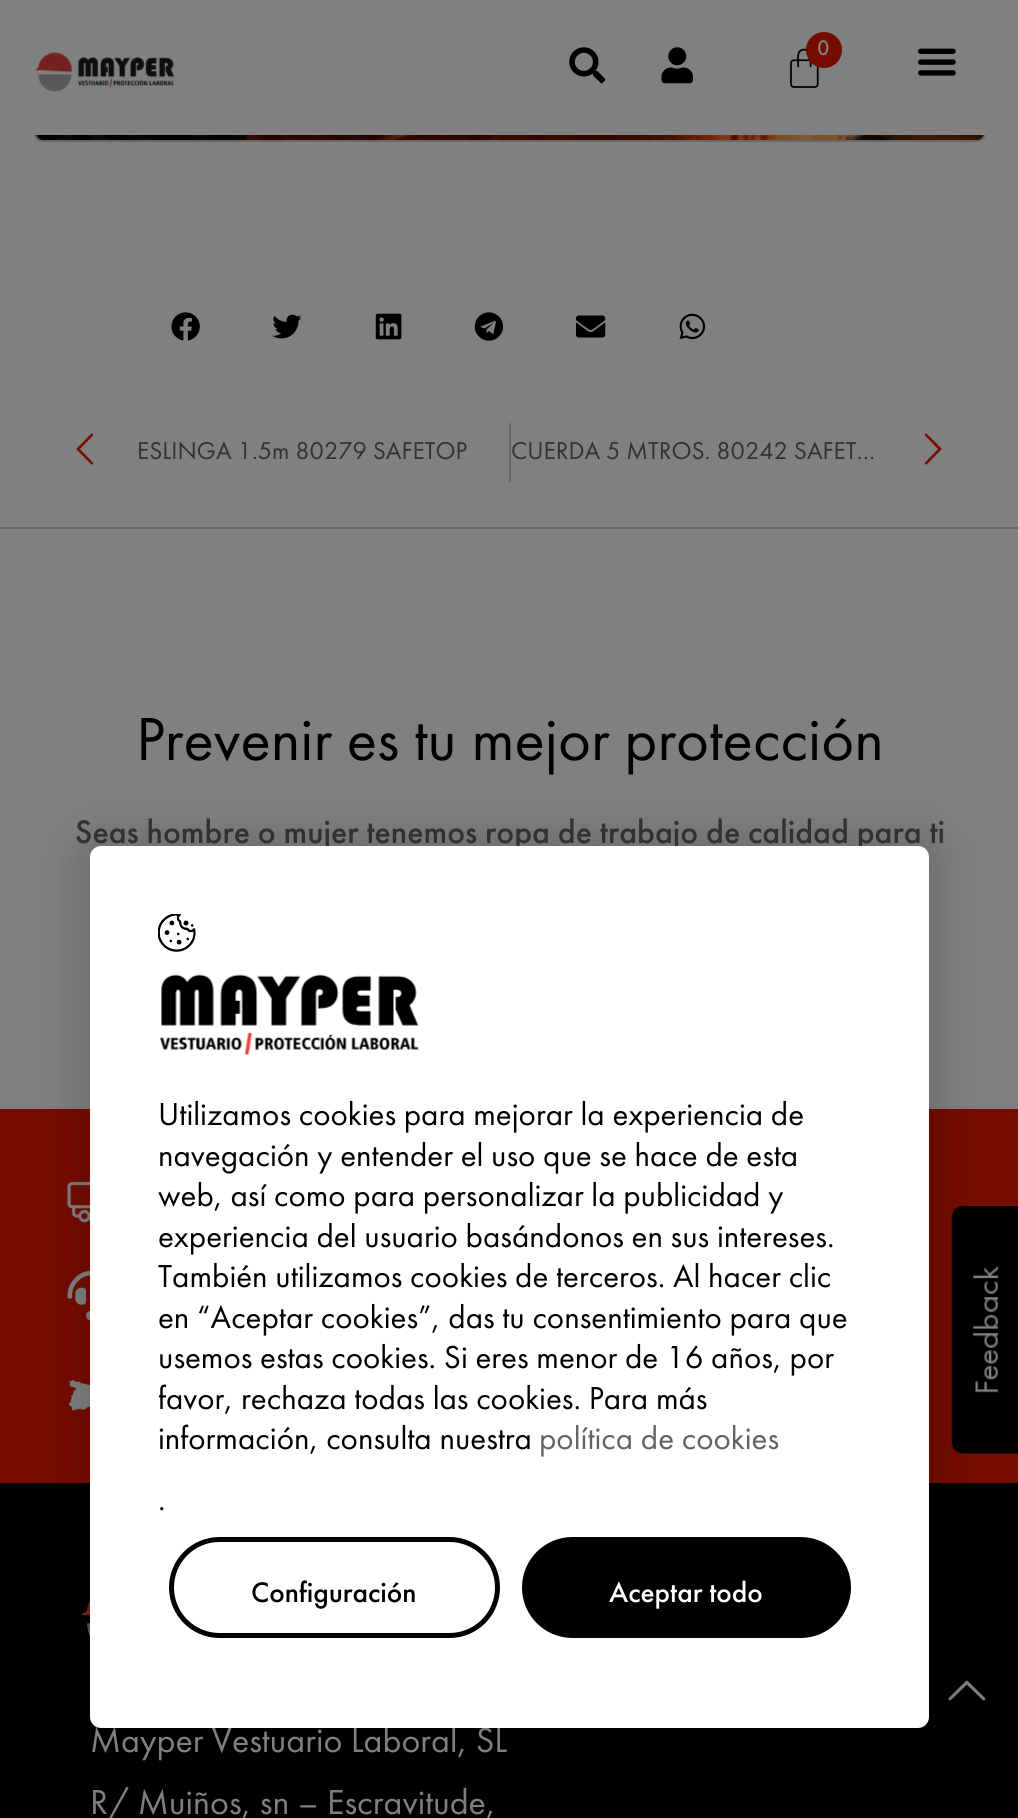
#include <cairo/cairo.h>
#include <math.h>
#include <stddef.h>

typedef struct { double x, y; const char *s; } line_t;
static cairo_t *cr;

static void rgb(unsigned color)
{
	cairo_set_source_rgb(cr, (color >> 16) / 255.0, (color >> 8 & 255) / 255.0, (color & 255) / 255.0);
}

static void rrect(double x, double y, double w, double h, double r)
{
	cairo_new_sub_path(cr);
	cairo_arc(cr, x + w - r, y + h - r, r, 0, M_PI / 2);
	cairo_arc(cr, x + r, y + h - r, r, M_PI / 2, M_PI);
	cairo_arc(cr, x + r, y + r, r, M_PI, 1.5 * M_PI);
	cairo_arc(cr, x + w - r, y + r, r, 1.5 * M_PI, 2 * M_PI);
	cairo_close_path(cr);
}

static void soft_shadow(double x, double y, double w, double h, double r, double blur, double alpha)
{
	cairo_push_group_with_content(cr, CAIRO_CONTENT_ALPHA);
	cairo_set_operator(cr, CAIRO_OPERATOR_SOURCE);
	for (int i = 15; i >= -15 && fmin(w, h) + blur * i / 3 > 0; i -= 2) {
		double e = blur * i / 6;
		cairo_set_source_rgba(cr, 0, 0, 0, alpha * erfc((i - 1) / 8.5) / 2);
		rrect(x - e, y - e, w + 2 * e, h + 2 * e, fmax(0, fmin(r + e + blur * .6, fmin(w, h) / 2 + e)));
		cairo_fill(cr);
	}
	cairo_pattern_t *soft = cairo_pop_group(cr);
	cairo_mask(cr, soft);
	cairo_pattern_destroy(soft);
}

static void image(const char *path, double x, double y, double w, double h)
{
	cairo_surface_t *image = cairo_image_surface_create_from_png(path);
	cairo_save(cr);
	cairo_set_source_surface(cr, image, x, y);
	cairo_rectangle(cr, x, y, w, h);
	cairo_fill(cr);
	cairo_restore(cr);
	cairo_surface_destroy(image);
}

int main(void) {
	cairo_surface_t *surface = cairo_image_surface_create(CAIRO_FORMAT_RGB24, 1018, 1818);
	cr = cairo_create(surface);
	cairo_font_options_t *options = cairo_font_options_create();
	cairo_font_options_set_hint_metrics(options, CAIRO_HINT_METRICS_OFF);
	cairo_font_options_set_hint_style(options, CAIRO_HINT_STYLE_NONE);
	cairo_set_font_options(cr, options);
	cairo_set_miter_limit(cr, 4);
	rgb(0x808080);
	cairo_paint(cr);
	image("img/6.png", 34, 135, 950, 7);
	rrect(35, -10, 950, 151, 8);
	rgb(0x686868);
	cairo_stroke(cr);
	rgb(0x808080);
	cairo_rectangle(cr, 34, 0, 952, 135);
	cairo_fill(cr);
	image("img/1.png", 569, 47, 37, 37);
	image("img/2.png", 661, 47, 32, 37);
	image("img/3.png", 790, 48, 29, 40);
	rgb(0x760c00);
	cairo_arc(cr, 824, 50, 18, 0, 2 * M_PI);
	cairo_fill(cr);
	image("img/4.png", 918, 48, 38, 28);
	image("img/5.png", 34, 52, 141, 40);
	rgb(0x686868);
	cairo_rectangle(cr, 0, 527, 1018, 2);
	cairo_fill(cr);
	image("img/7.png", 171, 312, 29, 29);
	image("img/8.png", 272, 314, 30, 25);
	image("img/9.png", 375, 313, 27, 27);
	image("img/10.png", 474, 312, 30, 29);
	image("img/11.png", 576, 315, 30, 23);
	image("img/12.png", 679, 313, 27, 27);
	image("img/13.png", 76, 433, 18, 32);
	cairo_rectangle(cr, 509, 423, 2, 59);
	cairo_fill(cr);
	image("img/14.png", 924, 433, 18, 32);
	rgb(0x760c00);
	cairo_rectangle(cr, 0, 1109, 1018, 374);
	cairo_fill(cr);
	image("img/15.png", 951, 1206, 67, 248);
	rgb(0x000000);
	cairo_rectangle(cr, 0, 1483, 1018, 335);
	cairo_fill(cr);
	image("img/16.png", 948, 1680, 38, 21);
	image("img/17.png", 67, 1182, 23, 41);
	image("img/18.png", 67, 1270, 23, 51);
	image("img/19.png", 68, 1380, 22, 31);
	image("img/20.png", 81, 1600, 9, 36);
	rgb(0x000000);
	soft_shadow(77, 833, 866, 909, 25, 21.5, 0.15);
	cairo_select_font_face(cr, "Futura PT Medium", CAIRO_FONT_SLANT_NORMAL, CAIRO_FONT_WEIGHT_NORMAL);
	cairo_set_font_size(cr, 22);
	rgb(0x808080);
	cairo_move_to(cr, 817, 55);
	cairo_show_text(cr, "0");
	cairo_select_font_face(cr, "Futura PT", CAIRO_FONT_SLANT_NORMAL, CAIRO_FONT_WEIGHT_NORMAL);
	cairo_set_font_size(cr, 25.25);
	rgb(0x313131);
	cairo_move_to(cr, 137, 459);
	cairo_show_text(cr, "ESLINGA 1.5m 80279 SAFETOP");
	cairo_move_to(cr, 511, 459);
	cairo_show_text(cr, "CUERDA 5 MTROS. 80242 SAFET…");
	cairo_set_font_size(cr, 63);
	rgb(0x000000);
	cairo_move_to(cr, 136, 760);
	cairo_show_text(cr, "Prevenir es tu mejor protección");
	cairo_select_font_face(cr, "Futura PT Medium", CAIRO_FONT_SLANT_NORMAL, CAIRO_FONT_WEIGHT_NORMAL);
	cairo_set_font_size(cr, 33.75);
	rgb(0x313131);
	cairo_move_to(cr, 75, 843);
	cairo_show_text(cr, "Seas hombre o mujer tenemos ropa de trabajo de calidad para ti");
	cairo_select_font_face(cr, "Futura PT", CAIRO_FONT_SLANT_NORMAL, CAIRO_FONT_WEIGHT_NORMAL);
	cairo_set_font_size(cr, 36);
	rgb(0x808080);
	cairo_move_to(cr, 90, 1752);
	cairo_show_text(cr, "Mayper Vestuario Laboral, SL");
	cairo_move_to(cr, 90, 1814);
	cairo_show_text(cr, "R/ Muiños, sn – Escravitude,");
	rgb(0xffffff);
	rrect(90, 846, 839, 882, 11);
	cairo_fill(cr);
	image("img/21.png", 158, 914, 38, 38);
	image("img/22.png", 159, 974, 260, 81);
	cairo_set_font_size(cr, 33);
	rgb(0x000000);
	{
		static const line_t items[] = {
			{158, 1125, "Utilizamos cookies para mejorar la experiencia de"},
			{158, 1166, "navegación y entender el uso que se hace de esta"},
			{158, 1206, "web, así como para personalizar la publicidad y"},
			{158, 1247, "experiencia del usuario basándonos en sus intereses."},
			{158, 1287, "También utilizamos cookies de terceros. Al hacer clic"},
			{158, 1328, "en “Aceptar cookies”, das tu consentimiento para que"},
			{158, 1368, "usemos estas cookies. Si eres menor de 16 años, por"},
			{158, 1409, "favor, rechaza todas las cookies. Para más"},
			{158, 1449, "información, consulta nuestra"},
		};
		for (size_t i = 0; i < sizeof items / sizeof *items; i++) {
			cairo_move_to(cr, items[i].x, items[i].y);
			cairo_show_text(cr, items[i].s);
		}
	}
	rgb(0x626262);
	cairo_move_to(cr, 539, 1449);
	cairo_show_text(cr, "política de cookies");
	rgb(0x000000);
	cairo_move_to(cr, 158, 1510);
	cairo_show_text(cr, ".");
	rrect(171.5, 1539.5, 326, 96, 48);
	cairo_set_line_width(cr, 5);
	cairo_stroke(cr);
	cairo_select_font_face(cr, "Futura PT Medium", CAIRO_FONT_SLANT_NORMAL, CAIRO_FONT_WEIGHT_NORMAL);
	cairo_set_font_size(cr, 29.25);
	cairo_move_to(cr, 251, 1602);
	cairo_show_text(cr, "Configuración");
	rrect(524.5, 1539.5, 324, 96, 48);
	cairo_fill_preserve(cr);
	cairo_stroke(cr);
	rgb(0xffffff);
	cairo_move_to(cr, 609, 1602);
	cairo_show_text(cr, "Aceptar todo");
	cairo_surface_write_to_png(surface, "page.png");
	cairo_font_options_destroy(options);
	cairo_destroy(cr);
	cairo_surface_destroy(surface);
	return 0;
}
